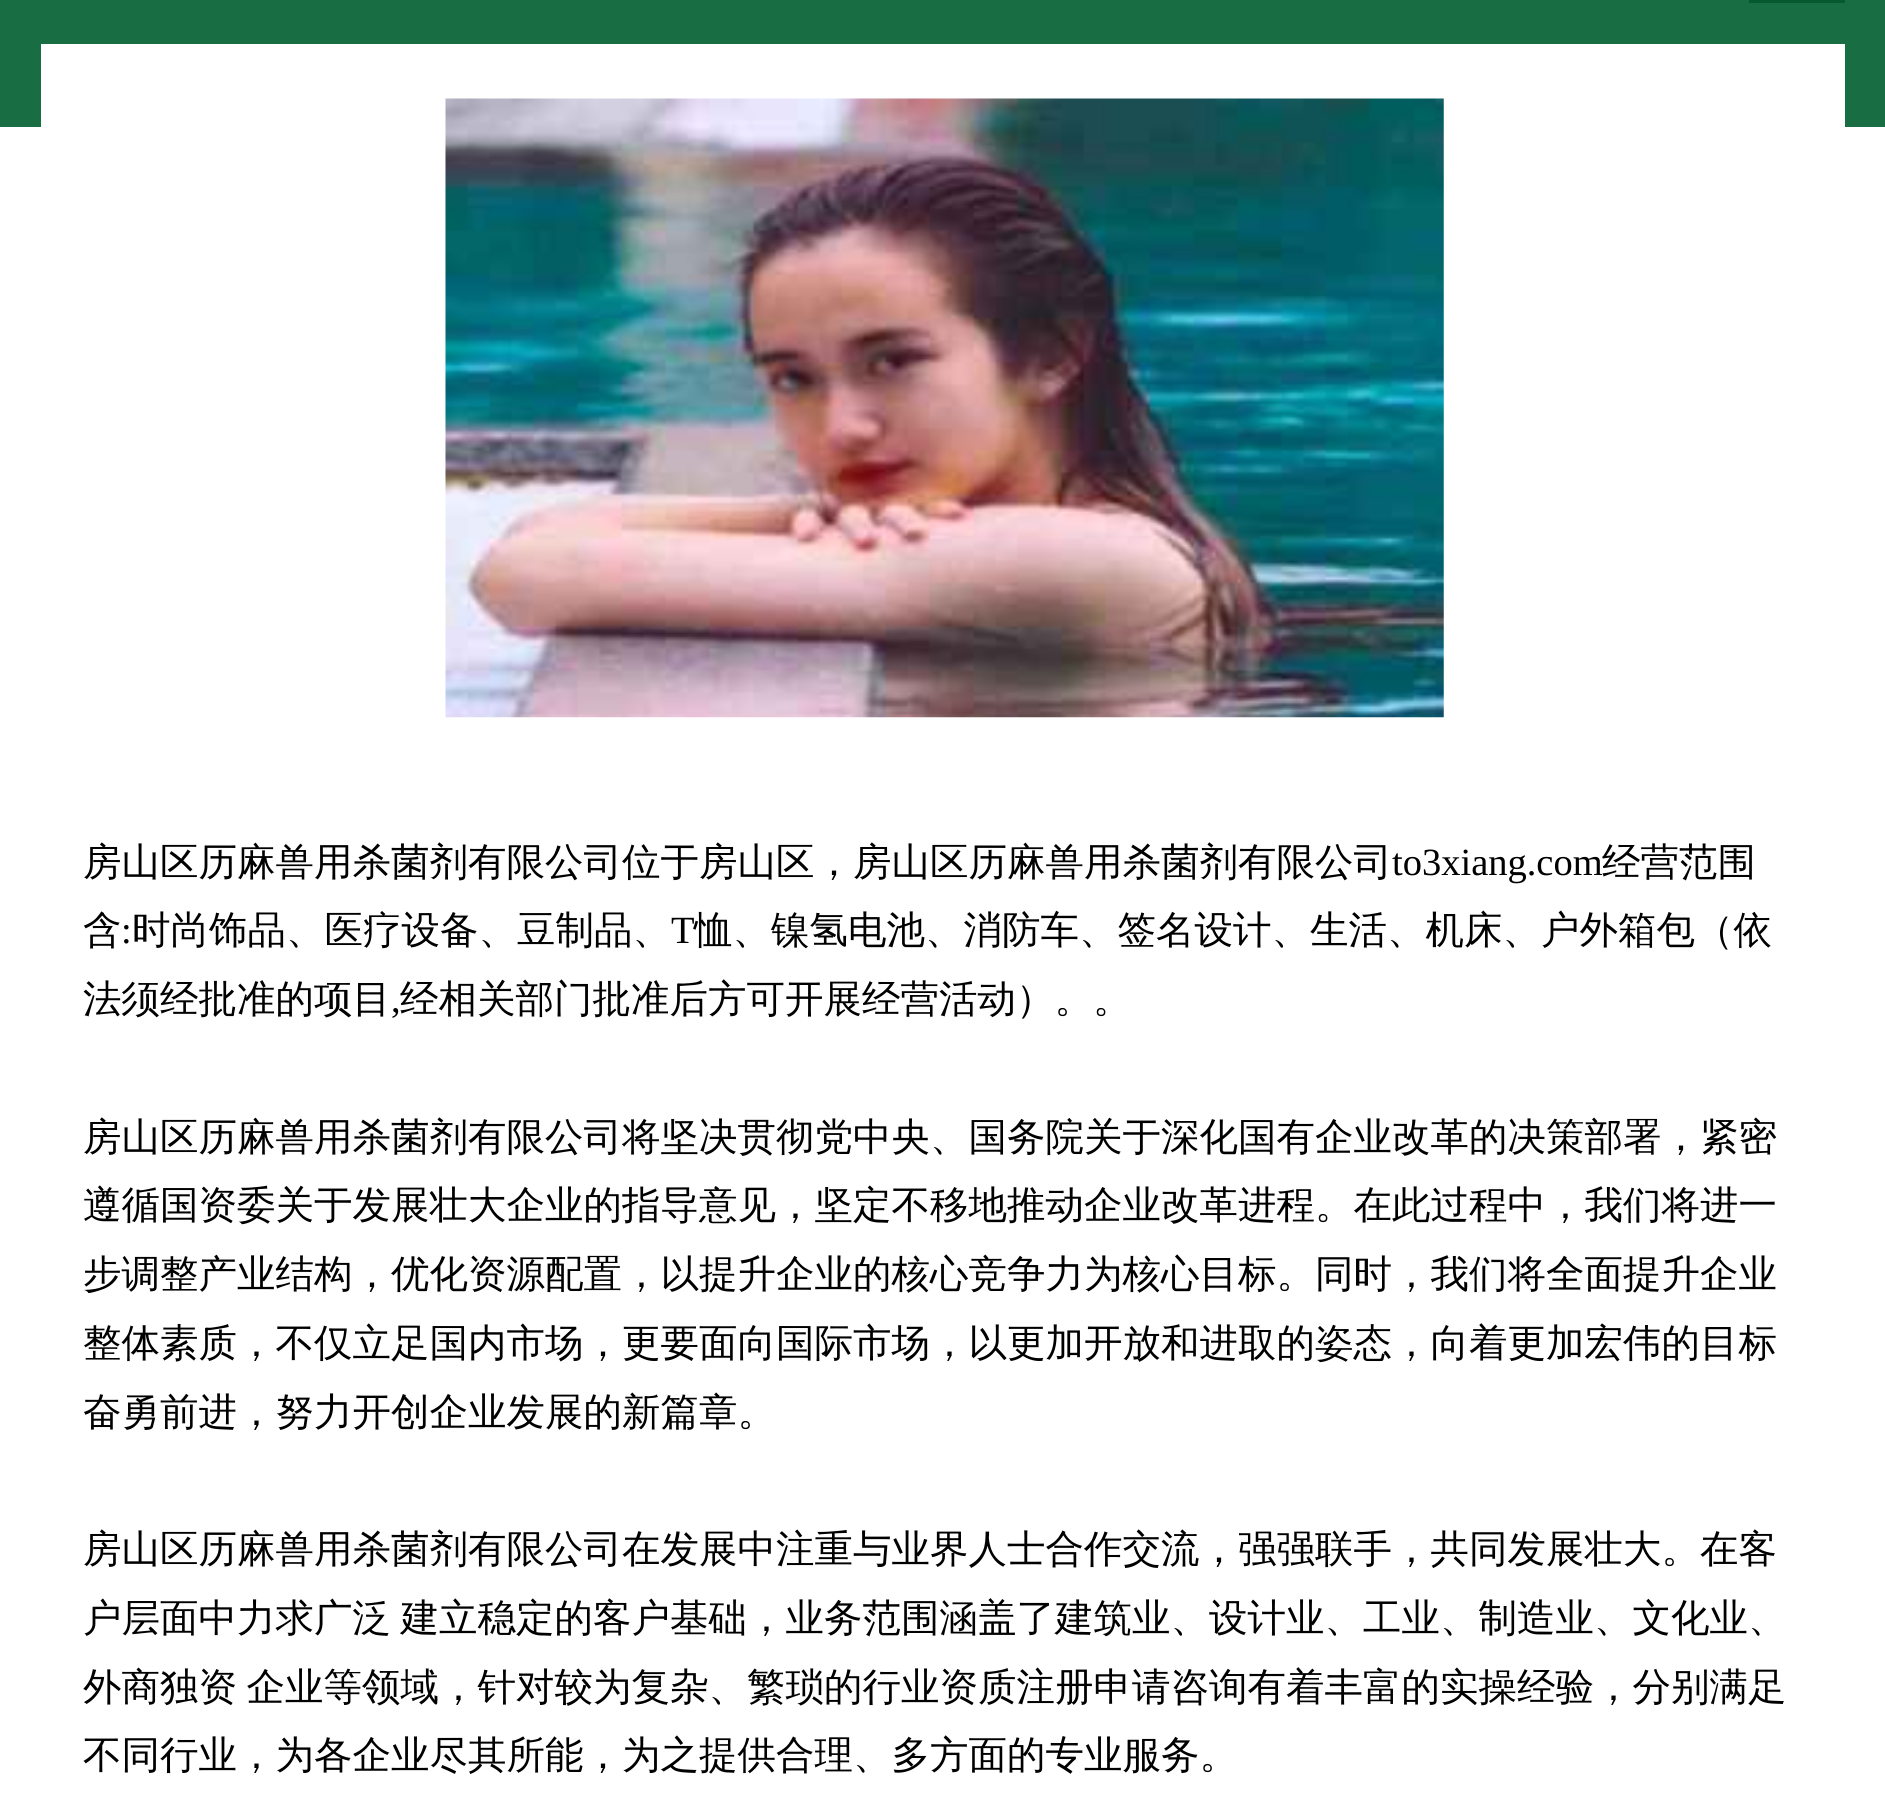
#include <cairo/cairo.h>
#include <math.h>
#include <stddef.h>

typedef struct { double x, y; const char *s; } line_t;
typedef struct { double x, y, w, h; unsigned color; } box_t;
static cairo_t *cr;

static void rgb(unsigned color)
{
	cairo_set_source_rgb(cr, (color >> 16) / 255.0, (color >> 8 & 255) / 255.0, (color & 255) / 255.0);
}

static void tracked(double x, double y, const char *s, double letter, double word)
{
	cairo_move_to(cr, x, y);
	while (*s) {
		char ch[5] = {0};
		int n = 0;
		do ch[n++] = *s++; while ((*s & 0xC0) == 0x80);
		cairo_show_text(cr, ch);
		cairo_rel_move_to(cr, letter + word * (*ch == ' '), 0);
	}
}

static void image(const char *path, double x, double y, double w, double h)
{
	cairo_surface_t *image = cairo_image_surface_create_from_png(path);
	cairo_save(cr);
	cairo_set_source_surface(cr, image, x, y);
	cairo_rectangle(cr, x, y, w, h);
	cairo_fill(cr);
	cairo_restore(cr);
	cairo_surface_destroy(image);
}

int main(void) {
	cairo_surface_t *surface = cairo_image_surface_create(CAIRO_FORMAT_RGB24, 1885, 1796);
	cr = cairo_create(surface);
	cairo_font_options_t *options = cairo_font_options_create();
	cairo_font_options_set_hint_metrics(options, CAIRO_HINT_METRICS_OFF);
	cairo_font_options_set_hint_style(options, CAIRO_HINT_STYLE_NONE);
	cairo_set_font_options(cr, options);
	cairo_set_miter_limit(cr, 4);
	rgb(0xffffff);
	cairo_paint(cr);
	{
		static const box_t items[] = {
			{0, 0, 1885, 127, 0x196d43},
			{1749, 0, 96, 3, 0x06582f},
			{41, 44, 1804, 83, 0xffffff},
		};
		for (size_t i = 0; i < sizeof items / sizeof *items; i++) {
			rgb(items[i].color);
			cairo_rectangle(cr, items[i].x, items[i].y, items[i].w, items[i].h);
			cairo_fill(cr);
		}
	}
	image("img/1.png", 445, 98, 999, 620);
	cairo_select_font_face(cr, "WenQuanYi Zen Hei Medium", CAIRO_FONT_SLANT_NORMAL, CAIRO_FONT_WEIGHT_NORMAL);
	cairo_set_font_size(cr, 38.5);
	rgb(0x000000);
	cairo_move_to(cr, 83, 875);
	cairo_show_text(cr, "房山区历麻兽用杀菌剂有限公司位于房山区，房山区历麻兽用杀菌剂有限公司");
	cairo_select_font_face(cr, "Liberation Serif", CAIRO_FONT_SLANT_NORMAL, CAIRO_FONT_WEIGHT_NORMAL);
	cairo_move_to(cr, 1392, 875);
	cairo_show_text(cr, "to3xiang.com");
	cairo_select_font_face(cr, "WenQuanYi Zen Hei Medium", CAIRO_FONT_SLANT_NORMAL, CAIRO_FONT_WEIGHT_NORMAL);
	cairo_move_to(cr, 1602, 875);
	cairo_show_text(cr, "经营范围");
	cairo_move_to(cr, 83, 943);
	cairo_show_text(cr, "含");
	cairo_select_font_face(cr, "Liberation Serif", CAIRO_FONT_SLANT_NORMAL, CAIRO_FONT_WEIGHT_NORMAL);
	cairo_move_to(cr, 121, 943);
	cairo_show_text(cr, ":");
	cairo_select_font_face(cr, "WenQuanYi Zen Hei Medium", CAIRO_FONT_SLANT_NORMAL, CAIRO_FONT_WEIGHT_NORMAL);
	cairo_move_to(cr, 132, 943);
	cairo_show_text(cr, "时尚饰品、医疗设备、豆制品、");
	cairo_select_font_face(cr, "Liberation Serif", CAIRO_FONT_SLANT_NORMAL, CAIRO_FONT_WEIGHT_NORMAL);
	cairo_move_to(cr, 671, 943);
	cairo_show_text(cr, "T");
	cairo_select_font_face(cr, "WenQuanYi Zen Hei Medium", CAIRO_FONT_SLANT_NORMAL, CAIRO_FONT_WEIGHT_NORMAL);
	cairo_move_to(cr, 694, 943);
	cairo_show_text(cr, "恤、镍氢电池、消防车、签名设计、生活、机床、户外箱包（依");
	cairo_move_to(cr, 83, 1012);
	cairo_show_text(cr, "法须经批准的项目");
	cairo_select_font_face(cr, "Liberation Serif", CAIRO_FONT_SLANT_NORMAL, CAIRO_FONT_WEIGHT_NORMAL);
	cairo_move_to(cr, 391, 1012);
	cairo_show_text(cr, ",");
	cairo_select_font_face(cr, "WenQuanYi Zen Hei Medium", CAIRO_FONT_SLANT_NORMAL, CAIRO_FONT_WEIGHT_NORMAL);
	{
		static const line_t items[] = {
			{400, 1012, "经相关部门批准后方可开展经营活动）。。"},
			{83, 1150, "房山区历麻兽用杀菌剂有限公司将坚决贯彻党中央、国务院关于深化国有企业改革的决策部署，紧密"},
			{83, 1218, "遵循国资委关于发展壮大企业的指导意见，坚定不移地推动企业改革进程。在此过程中，我们将进一"},
			{83, 1287, "步调整产业结构，优化资源配置，以提升企业的核心竞争力为核心目标。同时，我们将全面提升企业"},
			{83, 1356, "整体素质，不仅立足国内市场，更要面向国际市场，以更加开放和进取的姿态，向着更加宏伟的目标"},
			{83, 1425, "奋勇前进，努力开创企业发展的新篇章。"},
			{83, 1562, "房山区历麻兽用杀菌剂有限公司在发展中注重与业界人士合作交流，强强联手，共同发展壮大。在客"},
		};
		for (size_t i = 0; i < sizeof items / sizeof *items; i++) {
			cairo_move_to(cr, items[i].x, items[i].y);
			cairo_show_text(cr, items[i].s);
		}
	}
	tracked(83, 1631, "户层面中力求广泛 建立稳定的客户基础，业务范围涵盖了建筑业、设计业、工业、制造业、文化业、", 0, -2);
	tracked(83, 1700, "外商独资 企业等领域，针对较为复杂、繁琐的行业资质注册申请咨询有着丰富的实操经验，分别满足", 0, -2);
	cairo_move_to(cr, 83, 1768);
	cairo_show_text(cr, "不同行业，为各企业尽其所能，为之提供合理、多方面的专业服务。");
	cairo_surface_write_to_png(surface, "page.png");
	cairo_font_options_destroy(options);
	cairo_destroy(cr);
	cairo_surface_destroy(surface);
	return 0;
}
